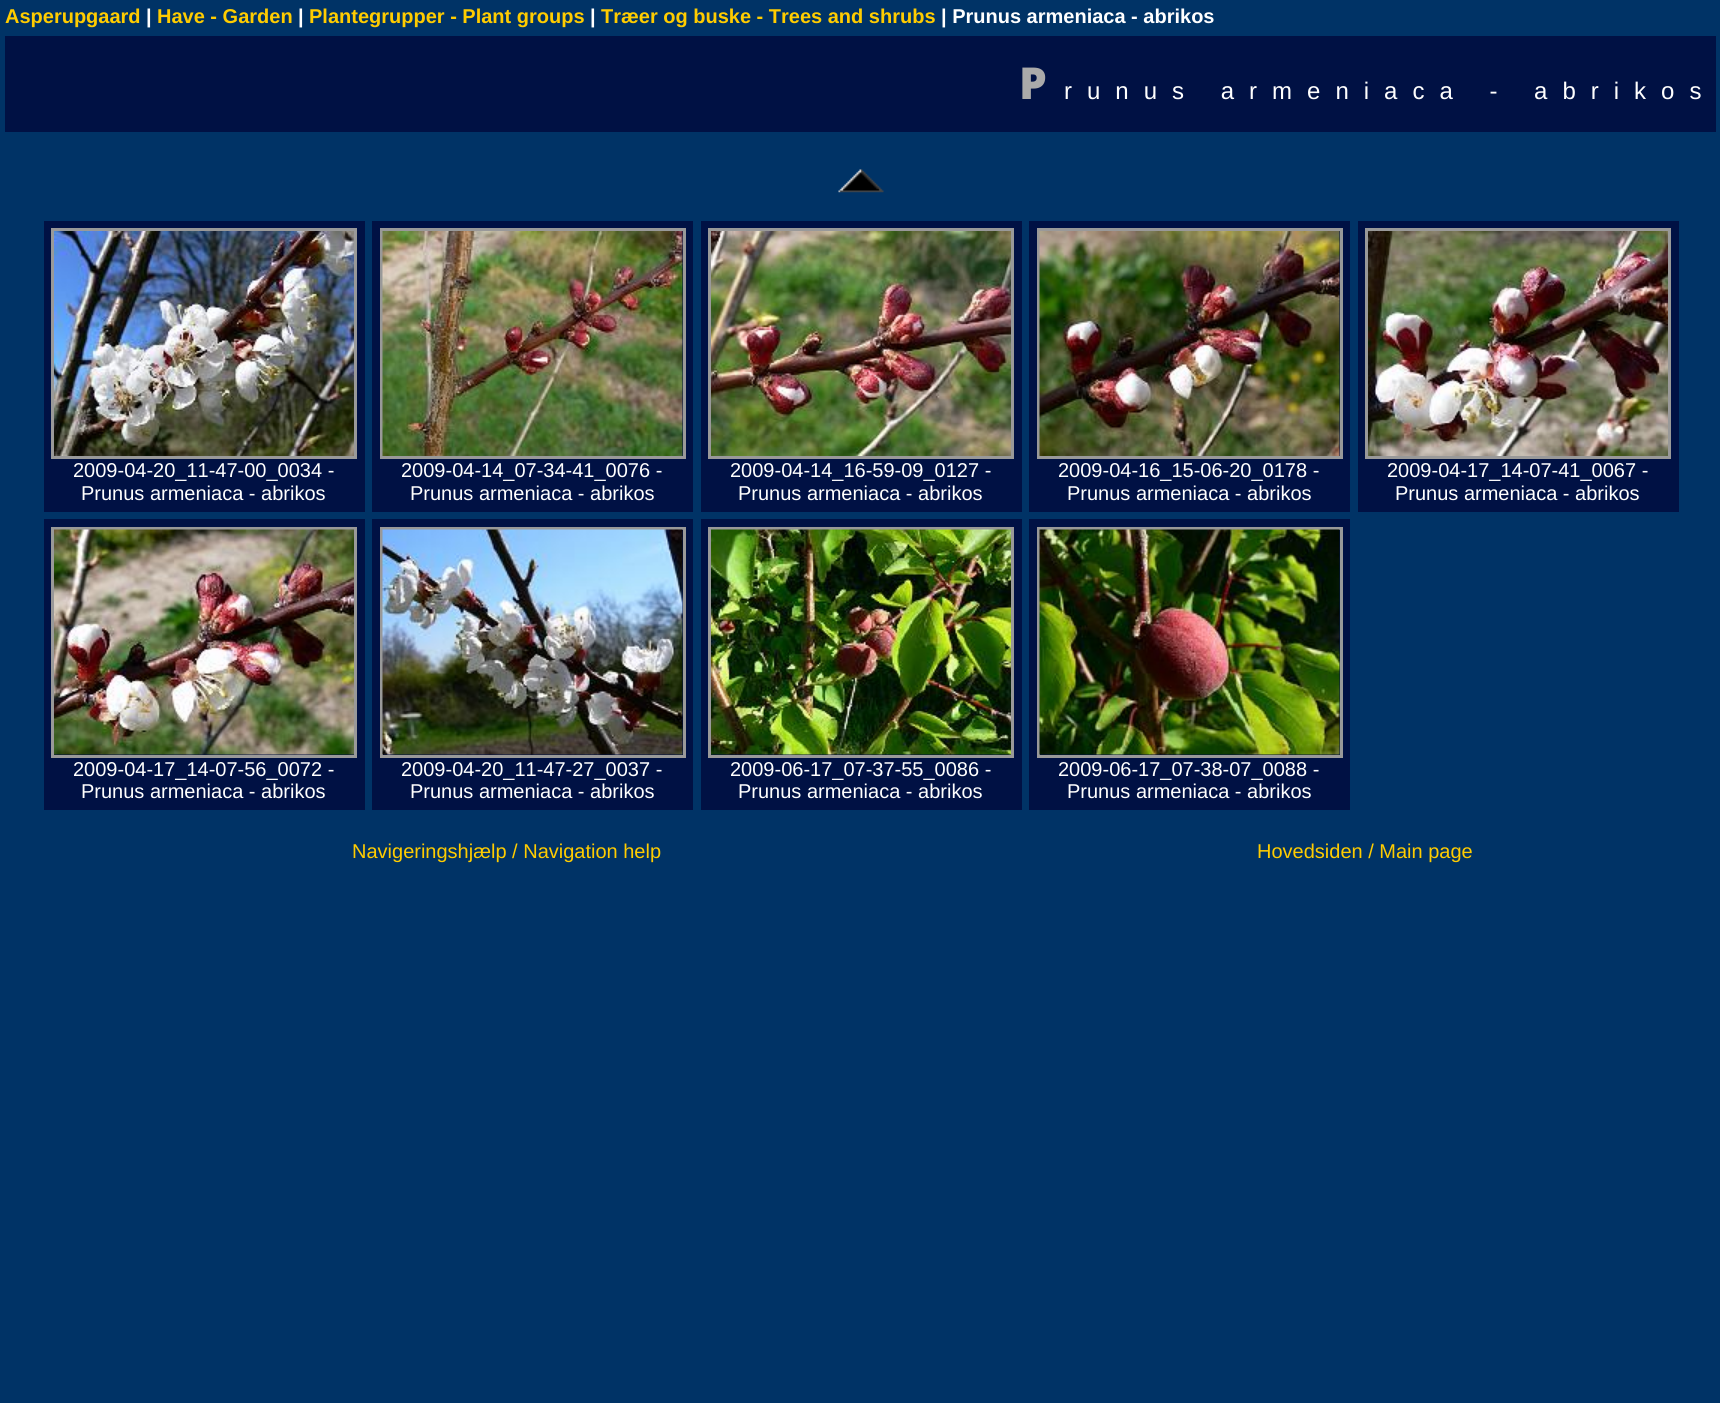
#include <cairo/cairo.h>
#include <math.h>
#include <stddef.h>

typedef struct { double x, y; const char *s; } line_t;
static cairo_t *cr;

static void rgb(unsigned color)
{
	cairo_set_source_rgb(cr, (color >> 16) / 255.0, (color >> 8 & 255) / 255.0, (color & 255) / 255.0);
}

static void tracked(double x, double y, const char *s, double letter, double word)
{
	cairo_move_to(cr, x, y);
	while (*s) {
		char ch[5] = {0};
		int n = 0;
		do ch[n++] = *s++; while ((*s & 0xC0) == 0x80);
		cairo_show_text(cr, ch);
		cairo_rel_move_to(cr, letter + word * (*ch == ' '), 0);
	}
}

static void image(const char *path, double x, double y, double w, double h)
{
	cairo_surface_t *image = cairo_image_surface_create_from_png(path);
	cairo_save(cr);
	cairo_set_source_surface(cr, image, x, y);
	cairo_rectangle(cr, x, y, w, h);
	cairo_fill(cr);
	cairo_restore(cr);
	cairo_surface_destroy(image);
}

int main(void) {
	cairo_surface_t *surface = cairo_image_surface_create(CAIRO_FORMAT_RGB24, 1720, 1403);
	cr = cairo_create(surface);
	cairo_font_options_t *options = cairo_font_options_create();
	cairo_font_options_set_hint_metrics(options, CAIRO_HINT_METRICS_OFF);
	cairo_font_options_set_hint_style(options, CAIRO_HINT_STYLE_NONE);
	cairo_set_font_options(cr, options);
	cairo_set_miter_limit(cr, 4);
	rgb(0x003366);
	cairo_paint(cr);
	rgb(0x001144);
	cairo_rectangle(cr, 5, 36, 1711, 96);
	cairo_fill(cr);
	image("img/1.png", 838, 169, 46, 24);
	cairo_rectangle(cr, 44, 221, 321, 291);
	cairo_fill(cr);
	cairo_rectangle(cr, 52.5, 229.5, 303, 228);
	rgb(0x999999);
	cairo_set_line_width(cr, 3);
	cairo_stroke(cr);
	image("img/2.png", 54, 231, 300, 225);
	rgb(0x001144);
	cairo_rectangle(cr, 372, 221, 321, 291);
	cairo_fill(cr);
	cairo_rectangle(cr, 381.5, 229.5, 303, 228);
	rgb(0x999999);
	cairo_stroke(cr);
	image("img/3.png", 382, 231, 301, 225);
	rgb(0x001144);
	cairo_rectangle(cr, 701, 221, 321, 291);
	cairo_fill(cr);
	cairo_rectangle(cr, 709.5, 229.5, 303, 228);
	rgb(0x999999);
	cairo_stroke(cr);
	image("img/4.png", 711, 231, 300, 225);
	rgb(0x001144);
	cairo_rectangle(cr, 1029, 221, 321, 291);
	cairo_fill(cr);
	cairo_rectangle(cr, 1038.5, 229.5, 303, 228);
	rgb(0x999999);
	cairo_stroke(cr);
	image("img/5.png", 1039, 231, 301, 225);
	rgb(0x001144);
	cairo_rectangle(cr, 1358, 221, 321, 291);
	cairo_fill(cr);
	cairo_rectangle(cr, 1366.5, 229.5, 303, 228);
	rgb(0x999999);
	cairo_stroke(cr);
	image("img/6.png", 1368, 231, 300, 225);
	rgb(0x001144);
	cairo_rectangle(cr, 44, 519, 321, 291);
	cairo_fill(cr);
	cairo_rectangle(cr, 52.5, 528.5, 303, 228);
	rgb(0x999999);
	cairo_stroke(cr);
	image("img/7.png", 54, 529, 300, 226);
	rgb(0x001144);
	cairo_rectangle(cr, 372, 519, 321, 291);
	cairo_fill(cr);
	cairo_rectangle(cr, 381.5, 528.5, 303, 228);
	rgb(0x999999);
	cairo_stroke(cr);
	image("img/8.png", 382, 529, 301, 226);
	rgb(0x001144);
	cairo_rectangle(cr, 701, 519, 321, 291);
	cairo_fill(cr);
	cairo_rectangle(cr, 709.5, 528.5, 303, 228);
	rgb(0x999999);
	cairo_stroke(cr);
	image("img/9.png", 711, 529, 300, 226);
	rgb(0x001144);
	cairo_rectangle(cr, 1029, 519, 321, 291);
	cairo_fill(cr);
	cairo_rectangle(cr, 1038.5, 528.5, 303, 228);
	rgb(0x999999);
	cairo_stroke(cr);
	image("img/10.png", 1039, 529, 301, 226);
	cairo_select_font_face(cr, "Liberation Sans", CAIRO_FONT_SLANT_NORMAL, CAIRO_FONT_WEIGHT_BOLD);
	cairo_set_font_size(cr, 20);
	rgb(0xffcc00);
	cairo_move_to(cr, 5, 23);
	cairo_show_text(cr, "Asperupgaard");
	rgb(0xffffff);
	cairo_move_to(cr, 146, 23);
	cairo_show_text(cr, "|");
	rgb(0xffcc00);
	cairo_move_to(cr, 157, 23);
	cairo_show_text(cr, "Have - Garden");
	rgb(0xffffff);
	cairo_move_to(cr, 298, 23);
	cairo_show_text(cr, "|");
	rgb(0xffcc00);
	cairo_move_to(cr, 309, 23);
	cairo_show_text(cr, "Plantegrupper - Plant groups");
	rgb(0xffffff);
	cairo_move_to(cr, 590, 23);
	cairo_show_text(cr, "|");
	rgb(0xffcc00);
	cairo_move_to(cr, 601, 23);
	cairo_show_text(cr, "Træer og buske - Trees and shrubs");
	rgb(0xffffff);
	cairo_move_to(cr, 941, 23);
	cairo_show_text(cr, "| Prunus armeniaca - abrikos");
	cairo_select_font_face(cr, "Noto Sans Black", CAIRO_FONT_SLANT_NORMAL, CAIRO_FONT_WEIGHT_NORMAL);
	cairo_set_font_size(cr, 44);
	rgb(0xaaaaaa);
	tracked(1019, 99, "P", 15, 0);
	cairo_select_font_face(cr, "Liberation Sans", CAIRO_FONT_SLANT_NORMAL, CAIRO_FONT_WEIGHT_NORMAL);
	cairo_set_font_size(cr, 24);
	rgb(0xffffff);
	tracked(1064, 99, "runus armeniaca - abrikos", 15, 0);
	cairo_set_font_size(cr, 20);
	{
		static const line_t items[] = {
			{73, 477, "2009-04-20_11-47-00_0034 -"},
			{81, 500, "Prunus armeniaca - abrikos"},
			{401, 477, "2009-04-14_07-34-41_0076 -"},
			{410, 500, "Prunus armeniaca - abrikos"},
			{730, 477, "2009-04-14_16-59-09_0127 -"},
			{738, 500, "Prunus armeniaca - abrikos"},
			{1058, 477, "2009-04-16_15-06-20_0178 -"},
			{1067, 500, "Prunus armeniaca - abrikos"},
			{1387, 477, "2009-04-17_14-07-41_0067 -"},
			{1395, 500, "Prunus armeniaca - abrikos"},
			{73, 776, "2009-04-17_14-07-56_0072 -"},
			{81, 798, "Prunus armeniaca - abrikos"},
			{401, 776, "2009-04-20_11-47-27_0037 -"},
			{410, 798, "Prunus armeniaca - abrikos"},
			{730, 776, "2009-06-17_07-37-55_0086 -"},
			{738, 798, "Prunus armeniaca - abrikos"},
			{1058, 776, "2009-06-17_07-38-07_0088 -"},
			{1067, 798, "Prunus armeniaca - abrikos"},
		};
		for (size_t i = 0; i < sizeof items / sizeof *items; i++) {
			cairo_move_to(cr, items[i].x, items[i].y);
			cairo_show_text(cr, items[i].s);
		}
	}
	rgb(0xffcc00);
	cairo_move_to(cr, 352, 858);
	cairo_show_text(cr, "Navigeringshjælp / Navigation help");
	cairo_move_to(cr, 1257, 858);
	cairo_show_text(cr, "Hovedsiden / Main page");
	cairo_surface_write_to_png(surface, "page.png");
	cairo_font_options_destroy(options);
	cairo_destroy(cr);
	cairo_surface_destroy(surface);
	return 0;
}
